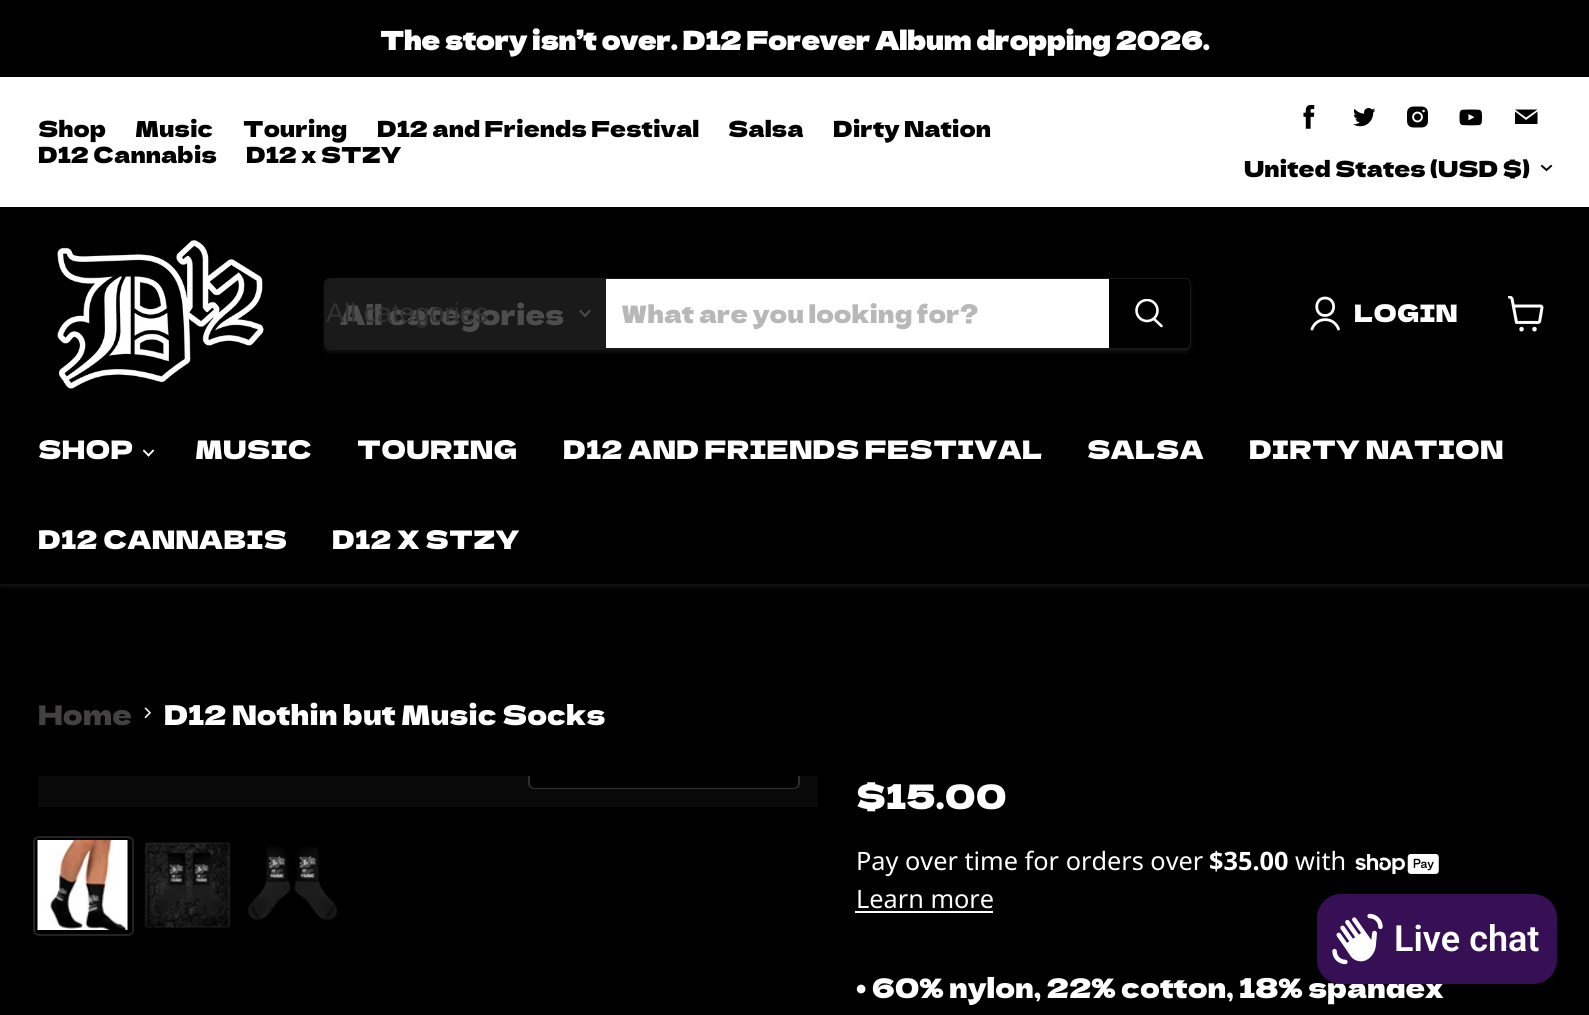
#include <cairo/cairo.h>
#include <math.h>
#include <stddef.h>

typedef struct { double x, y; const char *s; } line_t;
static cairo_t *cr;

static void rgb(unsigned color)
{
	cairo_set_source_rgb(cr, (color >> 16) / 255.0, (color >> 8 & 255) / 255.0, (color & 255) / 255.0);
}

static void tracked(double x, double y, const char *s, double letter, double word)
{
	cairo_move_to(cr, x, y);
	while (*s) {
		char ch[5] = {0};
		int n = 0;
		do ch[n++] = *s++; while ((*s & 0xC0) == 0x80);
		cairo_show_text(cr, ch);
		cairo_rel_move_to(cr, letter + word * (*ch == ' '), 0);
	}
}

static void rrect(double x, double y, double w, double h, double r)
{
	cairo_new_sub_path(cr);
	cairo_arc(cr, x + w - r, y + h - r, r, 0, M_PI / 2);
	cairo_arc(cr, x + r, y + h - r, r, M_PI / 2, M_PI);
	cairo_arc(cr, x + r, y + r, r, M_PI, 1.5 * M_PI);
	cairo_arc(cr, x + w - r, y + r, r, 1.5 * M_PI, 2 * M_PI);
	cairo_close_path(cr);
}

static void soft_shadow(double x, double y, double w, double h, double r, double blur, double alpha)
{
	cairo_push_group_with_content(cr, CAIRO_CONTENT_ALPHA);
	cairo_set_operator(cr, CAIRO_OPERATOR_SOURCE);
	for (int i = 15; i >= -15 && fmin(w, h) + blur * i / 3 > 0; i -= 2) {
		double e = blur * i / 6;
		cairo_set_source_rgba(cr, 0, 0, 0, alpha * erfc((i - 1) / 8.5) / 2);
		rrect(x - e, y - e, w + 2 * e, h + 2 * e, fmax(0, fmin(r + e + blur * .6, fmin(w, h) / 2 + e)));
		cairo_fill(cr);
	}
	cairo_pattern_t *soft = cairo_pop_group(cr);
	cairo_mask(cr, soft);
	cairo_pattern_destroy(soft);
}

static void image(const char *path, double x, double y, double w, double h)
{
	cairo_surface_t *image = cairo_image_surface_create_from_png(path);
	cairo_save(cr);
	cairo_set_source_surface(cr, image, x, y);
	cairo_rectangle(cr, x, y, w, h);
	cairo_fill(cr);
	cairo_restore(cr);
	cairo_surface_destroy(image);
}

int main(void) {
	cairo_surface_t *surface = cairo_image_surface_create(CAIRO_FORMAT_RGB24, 1589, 1015);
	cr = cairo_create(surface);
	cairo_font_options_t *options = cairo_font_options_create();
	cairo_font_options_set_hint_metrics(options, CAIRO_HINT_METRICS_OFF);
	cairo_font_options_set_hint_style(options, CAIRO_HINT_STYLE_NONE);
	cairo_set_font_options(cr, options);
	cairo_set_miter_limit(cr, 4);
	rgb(0x000000);
	cairo_paint(cr);
	rgb(0x808080);
	soft_shadow(0, 210, 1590, 375, 0, 3, 0.25);
	rgb(0xffffff);
	cairo_rectangle(cr, 0, 77, 1589, 130);
	cairo_fill(cr);
	image("img/1.png", 1303, 105, 12, 24);
	image("img/2.png", 1353, 108, 23, 19);
	image("img/3.png", 1407, 106, 21, 22);
	image("img/4.png", 1459, 109, 24, 17);
	rgb(0x000000);
	cairo_set_fill_rule(cr, CAIRO_FILL_RULE_EVEN_ODD);
	cairo_new_path(cr);
	cairo_move_to(cr, 1537.5, 109.5);
	cairo_line_to(cr, 1515, 109.5);
	cairo_line_to(cr, 1526, 117.5);
	cairo_close_path(cr);
	cairo_move_to(cr, 1526, 120);
	cairo_line_to(cr, 1515, 111.5);
	cairo_line_to(cr, 1515, 124);
	cairo_line_to(cr, 1537.5, 124);
	cairo_line_to(cr, 1537.5, 111.5);
	cairo_close_path(cr);
	cairo_fill(cr);
	cairo_new_path(cr);
	cairo_move_to(cr, 1546.5, 170);
	cairo_line_to(cr, 1551, 166);
	cairo_move_to(cr, 1546.5, 170);
	cairo_line_to(cr, 1542, 166);
	cairo_set_line_width(cr, 1.9);
	cairo_set_line_cap(cr, CAIRO_LINE_CAP_SQUARE);
	cairo_stroke(cr);
	cairo_rectangle(cr, 0, 207, 1589, 377);
	cairo_fill(cr);
	image("img/5.png", 57, 240, 207, 149);
	cairo_save(cr);
	cairo_new_path(cr);
	cairo_move_to(cr, 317, 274);
	cairo_line_to(cr, 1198, 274);
	cairo_line_to(cr, 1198, 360);
	cairo_line_to(cr, 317, 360);
	cairo_close_path(cr);
	cairo_move_to(cr, 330, 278);
	cairo_line_to(cr, 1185, 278);
	cairo_curve_to(cr, 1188.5, 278, 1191, 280.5, 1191, 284);
	cairo_line_to(cr, 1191, 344);
	cairo_curve_to(cr, 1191, 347.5, 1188.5, 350, 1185, 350);
	cairo_line_to(cr, 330, 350);
	cairo_curve_to(cr, 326.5, 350, 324, 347.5, 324, 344);
	cairo_line_to(cr, 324, 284);
	cairo_curve_to(cr, 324, 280.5, 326.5, 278, 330, 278);
	cairo_close_path(cr);
	cairo_clip(cr);
	rgb(0x808080);
	soft_shadow(324, 281, 867, 72, 6, 2, 0.11);
	cairo_restore(cr);
	rrect(325, 279, 865, 70, 5);
	cairo_set_source_rgba(cr, 0.502, 0.502, 0.502, 0.2);
	cairo_set_line_width(cr, 2);
	cairo_set_line_cap(cr, CAIRO_LINE_CAP_BUTT);
	cairo_stroke(cr);
	rgb(0x1a1a1a);
	cairo_new_path(cr);
	cairo_move_to(cr, 331, 279);
	cairo_line_to(cr, 606, 279);
	cairo_line_to(cr, 606, 348);
	cairo_line_to(cr, 331, 348);
	cairo_curve_to(cr, 328, 348, 326, 346, 326, 343);
	cairo_line_to(cr, 326, 284);
	cairo_curve_to(cr, 326, 281, 328, 279, 331, 279);
	cairo_close_path(cr);
	cairo_fill(cr);
	cairo_new_path(cr);
	cairo_move_to(cr, 585, 316);
	cairo_line_to(cr, 589.5, 311);
	cairo_move_to(cr, 585, 316);
	cairo_line_to(cr, 580.5, 311);
	rgb(0x4d4d4d);
	cairo_set_line_width(cr, 1.9);
	cairo_set_line_cap(cr, CAIRO_LINE_CAP_SQUARE);
	cairo_stroke(cr);
	rgb(0xffffff);
	cairo_rectangle(cr, 606, 279, 503, 69);
	cairo_fill(cr);
	rgb(0x000000);
	cairo_new_path(cr);
	cairo_move_to(cr, 1110, 280);
	cairo_line_to(cr, 1185, 280);
	cairo_curve_to(cr, 1187, 280, 1189, 282, 1189, 284);
	cairo_line_to(cr, 1189, 343);
	cairo_curve_to(cr, 1189, 345, 1187, 347, 1185, 347);
	cairo_line_to(cr, 1110, 347);
	cairo_close_path(cr);
	cairo_fill_preserve(cr);
	cairo_set_line_width(cr, 2);
	cairo_set_line_cap(cr, CAIRO_LINE_CAP_BUTT);
	cairo_stroke(cr);
	cairo_new_path(cr);
	cairo_move_to(cr, 1161.5, 326);
	cairo_line_to(cr, 1154, 319);
	rgb(0xffffff);
	cairo_set_line_width(cr, 2.6);
	cairo_set_line_cap(cr, CAIRO_LINE_CAP_ROUND);
	cairo_stroke(cr);
	cairo_save(cr);
	cairo_set_fill_rule(cr, CAIRO_FILL_RULE_WINDING);
	cairo_rectangle(cr, 1134, 299, 30, 31);
	cairo_clip(cr);
	cairo_arc(cr, 1147, 310.5, 10.5, 0, 2 * M_PI);
	cairo_set_line_cap(cr, CAIRO_LINE_CAP_BUTT);
	cairo_stroke(cr);
	cairo_restore(cr);
	cairo_new_path(cr);
	cairo_move_to(cr, 1325, 315.5);
	cairo_curve_to(cr, 1336.5, 315.5, 1336.5, 298, 1325, 298);
	cairo_curve_to(cr, 1314, 298, 1314, 315.5, 1325, 315.5);
	cairo_close_path(cr);
	cairo_move_to(cr, 1338.5, 329);
	cairo_curve_to(cr, 1334, 316.5, 1316.5, 316.5, 1312, 329);
	cairo_set_line_width(cr, 2.8);
	cairo_set_line_join(cr, CAIRO_LINE_JOIN_ROUND);
	cairo_stroke(cr);
	image("img/6.png", 1508, 296, 36, 36);
	image("img/7.png", 143, 449, 12, 8);
	image("img/8.png", 144, 707, 7, 12);
	rgb(0x0a0a0a);
	cairo_rectangle(cr, 38, 776, 780, 31);
	cairo_fill(cr);
	cairo_save(cr);
	cairo_set_fill_rule(cr, CAIRO_FILL_RULE_WINDING);
	cairo_rectangle(cr, 38, 776, 780, 31);
	cairo_clip(cr);
	rrect(529, 742, 270, 46, 5);
	rgb(0x2f2f2f);
	cairo_set_line_width(cr, 2);
	cairo_set_line_cap(cr, CAIRO_LINE_CAP_BUTT);
	cairo_set_line_join(cr, CAIRO_LINE_JOIN_MITER);
	cairo_stroke(cr);
	cairo_restore(cr);
	cairo_set_source_rgba(cr, 0, 0, 0, 0.9);
	cairo_new_path(cr);
	cairo_move_to(cr, 530, 776);
	cairo_line_to(cr, 798, 776);
	cairo_line_to(cr, 798, 783);
	cairo_curve_to(cr, 798, 786, 796, 788, 793, 788);
	cairo_line_to(cr, 535, 788);
	cairo_curve_to(cr, 532, 788, 530, 786, 530, 783);
	cairo_close_path(cr);
	cairo_fill(cr);
	rrect(34, 837, 99, 98, 5);
	rgb(0x242323);
	cairo_set_line_width(cr, 2);
	cairo_set_line_cap(cr, CAIRO_LINE_CAP_BUTT);
	cairo_set_line_join(cr, CAIRO_LINE_JOIN_MITER);
	cairo_stroke(cr);
	image("img/9.png", 37, 840, 91, 90);
	image("img/10.png", 144, 842, 87, 86);
	image("img/11.png", 247, 846, 91, 75);
	image("img/12.png", 1355, 854, 84, 21);
	rgb(0xffffff);
	cairo_rectangle(cr, 855, 911, 138, 2);
	cairo_fill(cr);
	rgb(0x000000);
	soft_shadow(1317, 894, 240, 90, 24, 4, 0.15);
	cairo_select_font_face(cr, "Dela Gothic One", CAIRO_FONT_SLANT_NORMAL, CAIRO_FONT_WEIGHT_BOLD);
	cairo_set_font_size(cr, 25.3);
	rgb(0xffffff);
	cairo_move_to(cr, 380, 50);
	cairo_show_text(cr, "The story isn’t over. D12 Forever Album dropping 2026.");
	cairo_select_font_face(cr, "Dela Gothic One", CAIRO_FONT_SLANT_NORMAL, CAIRO_FONT_WEIGHT_NORMAL);
	cairo_set_font_size(cr, 22);
	rgb(0x000000);
	{
		static const line_t items[] = {
			{38, 137, "Shop"},
			{135, 137, "Music"},
			{243, 137, "Touring"},
			{377, 137, "D12 and Friends Festival"},
			{728, 137, "Salsa"},
			{833, 137, "Dirty Nation"},
			{38, 163, "D12 Cannabis"},
			{246, 163, "D12 x STZY"},
			{1244, 177, "United States (USD $)"},
		};
		for (size_t i = 0; i < sizeof items / sizeof *items; i++) {
			cairo_move_to(cr, items[i].x, items[i].y);
			cairo_show_text(cr, items[i].s);
		}
	}
	cairo_set_font_size(cr, 27);
	rgb(0x4d4d4d);
	cairo_move_to(cr, 340, 325);
	cairo_show_text(cr, "All categories");
	cairo_select_font_face(cr, "Liberation Sans", CAIRO_FONT_SLANT_NORMAL, CAIRO_FONT_WEIGHT_NORMAL);
	rgb(0x323232);
	cairo_move_to(cr, 326, 322);
	cairo_show_text(cr, "All categories");
	cairo_select_font_face(cr, "Dela Gothic One", CAIRO_FONT_SLANT_NORMAL, CAIRO_FONT_WEIGHT_NORMAL);
	cairo_set_font_size(cr, 24);
	rgb(0xb8b8b8);
	cairo_move_to(cr, 621, 323);
	cairo_show_text(cr, "What are you looking for?");
	rgb(0xffffff);
	tracked(1354, 322, "LOGIN", 0.25, 0);
	cairo_set_font_size(cr, 25.5);
	{
		static const line_t items[] = {
			{38, 459, "SHOP"},
			{195, 459, "MUSIC"},
			{357, 459, "TOURING"},
			{563, 459, "D12 AND FRIENDS FESTIVAL"},
			{1087, 459, "SALSA"},
			{1249, 459, "DIRTY NATION"},
			{38, 549, "D12 CANNABIS"},
			{332, 549, "D12 X STZY"},
		};
		for (size_t i = 0; i < sizeof items / sizeof *items; i++) {
			tracked(items[i].x, items[i].y, items[i].s, 0.25, 0);
		}
	}
	cairo_set_font_size(cr, 27);
	rgb(0x434141);
	cairo_move_to(cr, 38, 725);
	cairo_show_text(cr, "Home");
	rgb(0xffffff);
	cairo_move_to(cr, 164, 725);
	cairo_show_text(cr, "D12 Nothin but Music Socks");
	cairo_set_font_size(cr, 33.75);
	cairo_move_to(cr, 856, 809);
	cairo_show_text(cr, "$15.00");
	cairo_select_font_face(cr, "Noto Sans", CAIRO_FONT_SLANT_NORMAL, CAIRO_FONT_WEIGHT_NORMAL);
	cairo_set_font_size(cr, 25.3);
	cairo_move_to(cr, 856, 870);
	cairo_show_text(cr, "Pay over time for orders over");
	cairo_select_font_face(cr, "Noto Sans", CAIRO_FONT_SLANT_NORMAL, CAIRO_FONT_WEIGHT_BOLD);
	cairo_move_to(cr, 1209, 870);
	cairo_show_text(cr, "$35.00");
	cairo_select_font_face(cr, "Noto Sans", CAIRO_FONT_SLANT_NORMAL, CAIRO_FONT_WEIGHT_NORMAL);
	cairo_move_to(cr, 1295, 870);
	cairo_show_text(cr, "with");
	cairo_move_to(cr, 856, 908);
	cairo_show_text(cr, "Learn more");
	cairo_select_font_face(cr, "Dela Gothic One", CAIRO_FONT_SLANT_NORMAL, CAIRO_FONT_WEIGHT_NORMAL);
	cairo_set_font_size(cr, 27);
	cairo_move_to(cr, 856, 998);
	cairo_show_text(cr, "• 60% nylon, 22% cotton, 18% spandex");
	rgb(0x360f54);
	rrect(1317, 894, 240, 90, 24);
	cairo_fill(cr);
	image("img/13.png", 1332, 913, 51, 52);
	cairo_select_font_face(cr, "Roboto SemiBold", CAIRO_FONT_SLANT_NORMAL, CAIRO_FONT_WEIGHT_NORMAL);
	cairo_set_font_size(cr, 36);
	rgb(0xffffff);
	cairo_move_to(cr, 1394, 951);
	cairo_show_text(cr, "Live chat");
	cairo_surface_write_to_png(surface, "page.png");
	cairo_font_options_destroy(options);
	cairo_destroy(cr);
	cairo_surface_destroy(surface);
	return 0;
}
